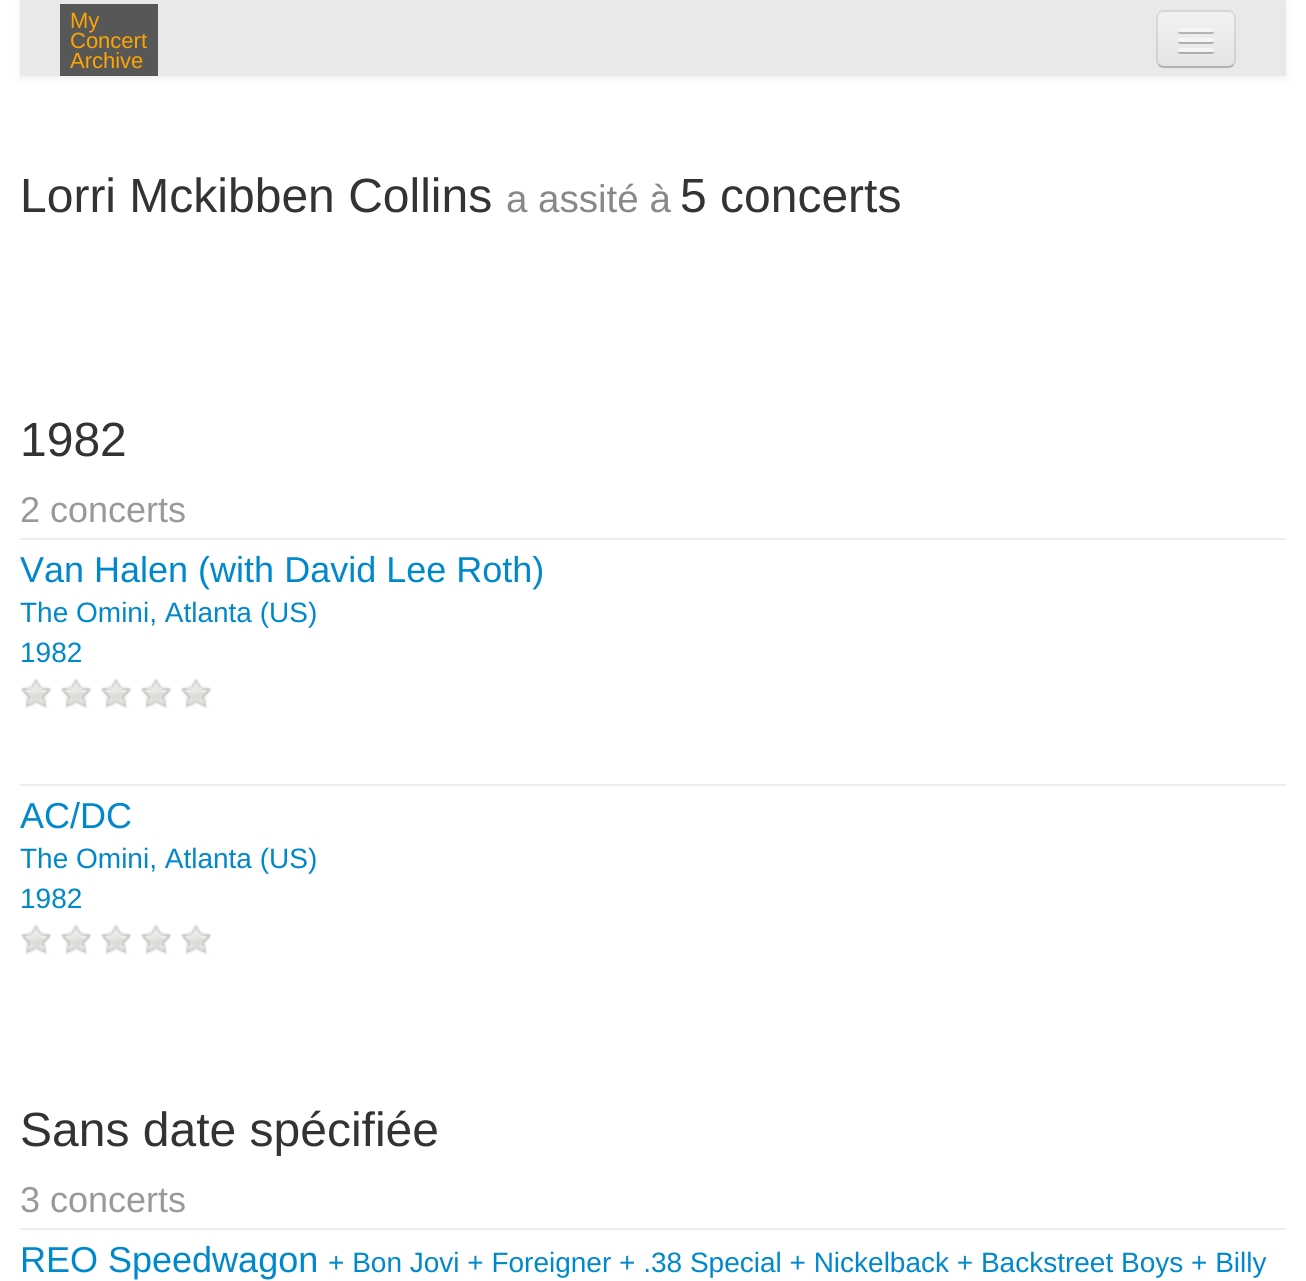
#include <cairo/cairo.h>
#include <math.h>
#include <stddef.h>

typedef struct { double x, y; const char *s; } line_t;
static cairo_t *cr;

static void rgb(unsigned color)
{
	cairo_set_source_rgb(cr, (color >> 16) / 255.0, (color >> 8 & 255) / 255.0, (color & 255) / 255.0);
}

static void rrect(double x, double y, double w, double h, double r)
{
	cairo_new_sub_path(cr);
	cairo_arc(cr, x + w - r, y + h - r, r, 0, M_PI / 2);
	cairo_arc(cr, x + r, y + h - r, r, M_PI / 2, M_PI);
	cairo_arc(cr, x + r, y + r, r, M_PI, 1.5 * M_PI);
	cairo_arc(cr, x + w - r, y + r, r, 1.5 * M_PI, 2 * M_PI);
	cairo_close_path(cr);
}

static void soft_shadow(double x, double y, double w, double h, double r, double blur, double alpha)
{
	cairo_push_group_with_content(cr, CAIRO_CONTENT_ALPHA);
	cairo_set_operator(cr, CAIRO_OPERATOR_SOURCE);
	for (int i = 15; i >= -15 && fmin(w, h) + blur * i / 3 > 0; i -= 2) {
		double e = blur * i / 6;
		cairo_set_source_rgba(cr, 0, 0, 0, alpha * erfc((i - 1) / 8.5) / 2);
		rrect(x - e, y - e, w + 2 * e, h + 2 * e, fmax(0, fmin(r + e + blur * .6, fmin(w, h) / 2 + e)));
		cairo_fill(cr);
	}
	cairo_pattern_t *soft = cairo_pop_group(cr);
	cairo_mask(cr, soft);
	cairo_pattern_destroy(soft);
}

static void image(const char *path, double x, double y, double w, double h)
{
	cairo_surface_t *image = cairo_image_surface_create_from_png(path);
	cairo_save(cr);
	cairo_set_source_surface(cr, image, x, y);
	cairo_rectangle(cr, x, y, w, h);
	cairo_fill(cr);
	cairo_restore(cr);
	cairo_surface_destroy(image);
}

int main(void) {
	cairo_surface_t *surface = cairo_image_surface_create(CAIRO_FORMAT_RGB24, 1306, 1281);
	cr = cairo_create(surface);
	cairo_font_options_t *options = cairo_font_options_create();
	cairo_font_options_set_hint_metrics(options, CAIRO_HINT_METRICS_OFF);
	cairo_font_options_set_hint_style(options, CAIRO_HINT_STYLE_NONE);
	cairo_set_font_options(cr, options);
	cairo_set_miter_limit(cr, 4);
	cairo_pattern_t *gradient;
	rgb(0xffffff);
	cairo_paint(cr);
	rgb(0x000000);
	soft_shadow(20, 2, 1266, 76, 0, 4, 0.07);
	rgb(0xe9e9e9);
	cairo_rectangle(cr, 20, 0, 1266, 76);
	cairo_fill(cr);
	rgb(0x575757);
	cairo_rectangle(cr, 60, 4, 98, 72);
	cairo_fill(cr);
	rgb(0xededed);
	rrect(1156, 10, 80, 58, 8);
	cairo_fill(cr);
	cairo_save(cr);
	rrect(1156, 10, 80, 58, 8);
	cairo_clip(cr);
	gradient = cairo_pattern_create_linear(1196, 12, 1196, 66);
	cairo_pattern_add_color_stop_rgba(gradient, 0, 0.949, 0.949, 0.949, 1);
	cairo_pattern_add_color_stop_rgba(gradient, 1, 0.898, 0.898, 0.898, 1);
	cairo_set_source(cr, gradient);
	cairo_pattern_destroy(gradient);
	cairo_rectangle(cr, 1156, 12, 80, 54);
	cairo_fill(cr);
	cairo_restore(cr);
	cairo_new_path(cr);
	cairo_move_to(cr, 1233, 65);
	cairo_curve_to(cr, 1231.5, 66.5, 1230, 67, 1228, 67);
	cairo_line_to(cr, 1164, 67);
	cairo_curve_to(cr, 1162, 67, 1160.5, 66.5, 1159, 65);
	cairo_set_source_rgba(cr, 0, 0, 0, 0.25);
	cairo_stroke(cr);
	cairo_new_path(cr);
	cairo_move_to(cr, 1159, 65);
	cairo_curve_to(cr, 1157.5, 63.5, 1157, 62, 1157, 60);
	cairo_line_to(cr, 1157, 18);
	cairo_curve_to(cr, 1157, 16, 1157.5, 14.5, 1159, 13);
	cairo_curve_to(cr, 1160.5, 11.5, 1162, 11, 1164, 11);
	cairo_line_to(cr, 1228, 11);
	cairo_curve_to(cr, 1230, 11, 1231.5, 11.5, 1233, 13);
	cairo_curve_to(cr, 1234.5, 14.5, 1235, 16, 1235, 18);
	cairo_line_to(cr, 1235, 60);
	cairo_curve_to(cr, 1235, 62, 1234.5, 63.5, 1233, 65);
	cairo_set_source_rgba(cr, 0, 0, 0, 0.1);
	cairo_stroke(cr);
	rgb(0xb2b2b2);
	cairo_new_path(cr);
	cairo_move_to(cr, 1178.5, 31);
	cairo_curve_to(cr, 1176, 35, 1185, 34, 1185.5, 34);
	cairo_line_to(cr, 1206.5, 34);
	cairo_curve_to(cr, 1207, 34, 1216, 35, 1213.5, 31);
	cairo_curve_to(cr, 1213.5, 31.5, 1212.5, 32, 1212, 32);
	cairo_line_to(cr, 1180, 32);
	cairo_curve_to(cr, 1179.5, 32, 1178.5, 31.5, 1178.5, 31);
	cairo_close_path(cr);
	cairo_fill(cr);
	rgb(0xf5f5f5);
	rrect(1178, 28, 36, 4, 2);
	cairo_fill(cr);
	rgb(0xb0b0b0);
	cairo_new_path(cr);
	cairo_move_to(cr, 1178.5, 41);
	cairo_curve_to(cr, 1176, 45, 1185, 44, 1185.5, 44);
	cairo_line_to(cr, 1206.5, 44);
	cairo_curve_to(cr, 1207, 44, 1216, 45, 1213.5, 41);
	cairo_curve_to(cr, 1213.5, 41.5, 1212.5, 42, 1212, 42);
	cairo_line_to(cr, 1180, 42);
	cairo_curve_to(cr, 1179.5, 42, 1178.5, 41.5, 1178.5, 41);
	cairo_close_path(cr);
	cairo_fill(cr);
	rgb(0xf5f5f5);
	rrect(1178, 38, 36, 4, 2);
	cairo_fill(cr);
	rgb(0xaeaeae);
	cairo_new_path(cr);
	cairo_move_to(cr, 1178.5, 51);
	cairo_curve_to(cr, 1176, 55, 1185, 54, 1185.5, 54);
	cairo_line_to(cr, 1206.5, 54);
	cairo_curve_to(cr, 1207, 54, 1216, 55, 1213.5, 51);
	cairo_curve_to(cr, 1213.5, 51.5, 1212.5, 52, 1212, 52);
	cairo_line_to(cr, 1180, 52);
	cairo_curve_to(cr, 1179.5, 52, 1178.5, 51.5, 1178.5, 51);
	cairo_close_path(cr);
	cairo_fill(cr);
	rgb(0xf5f5f5);
	rrect(1178, 48, 36, 4, 2);
	cairo_fill(cr);
	rgb(0xeeeeee);
	cairo_rectangle(cr, 20, 538, 1266, 2);
	cairo_fill(cr);
	image("img/1.png", 20, 678, 32, 31);
	image("img/1.png", 60, 678, 32, 31);
	image("img/1.png", 100, 678, 32, 31);
	image("img/1.png", 140, 678, 32, 31);
	image("img/1.png", 180, 678, 32, 31);
	cairo_rectangle(cr, 20, 784, 1266, 2);
	cairo_fill(cr);
	image("img/1.png", 20, 924, 32, 31);
	image("img/1.png", 60, 924, 32, 31);
	image("img/1.png", 100, 924, 32, 31);
	image("img/1.png", 140, 924, 32, 31);
	image("img/1.png", 180, 924, 32, 31);
	cairo_rectangle(cr, 20, 1228, 1266, 2);
	cairo_fill(cr);
	cairo_select_font_face(cr, "Liberation Sans", CAIRO_FONT_SLANT_NORMAL, CAIRO_FONT_WEIGHT_NORMAL);
	cairo_set_font_size(cr, 22);
	rgb(0xffa500);
	{
		static const line_t items[] = {
			{70, 28, "My"},
			{70, 48, "Concert"},
			{70, 68, "Archive"},
		};
		for (size_t i = 0; i < sizeof items / sizeof *items; i++) {
			cairo_move_to(cr, items[i].x, items[i].y);
			cairo_show_text(cr, items[i].s);
		}
	}
	cairo_set_font_size(cr, 48);
	rgb(0x333333);
	cairo_move_to(cr, 20, 212);
	cairo_show_text(cr, "Lorri Mckibben Collins");
	cairo_set_font_size(cr, 38.5);
	rgb(0x888888);
	cairo_move_to(cr, 506, 212);
	cairo_show_text(cr, "a assité à");
	cairo_set_font_size(cr, 48);
	rgb(0x333333);
	cairo_move_to(cr, 680, 212);
	cairo_show_text(cr, "5 concerts");
	cairo_move_to(cr, 20, 456);
	cairo_show_text(cr, "1982");
	cairo_set_font_size(cr, 36);
	rgb(0x999999);
	cairo_move_to(cr, 20, 522);
	cairo_show_text(cr, "2 concerts");
	rgb(0x0088cc);
	cairo_move_to(cr, 20, 582);
	cairo_show_text(cr, "Van Halen (with David Lee Roth)");
	cairo_set_font_size(cr, 28);
	cairo_move_to(cr, 20, 622);
	cairo_show_text(cr, "The Omini, Atlanta (US)");
	cairo_move_to(cr, 20, 662);
	cairo_show_text(cr, "1982");
	cairo_set_font_size(cr, 36);
	cairo_move_to(cr, 20, 828);
	cairo_show_text(cr, "AC/DC");
	cairo_set_font_size(cr, 28);
	cairo_move_to(cr, 20, 868);
	cairo_show_text(cr, "The Omini, Atlanta (US)");
	cairo_move_to(cr, 20, 908);
	cairo_show_text(cr, "1982");
	cairo_set_font_size(cr, 48);
	rgb(0x333333);
	cairo_move_to(cr, 20, 1146);
	cairo_show_text(cr, "Sans date spécifiée");
	cairo_set_font_size(cr, 36);
	rgb(0x999999);
	cairo_move_to(cr, 20, 1212);
	cairo_show_text(cr, "3 concerts");
	rgb(0x0088cc);
	cairo_move_to(cr, 20, 1272);
	cairo_show_text(cr, "REO Speedwagon");
	cairo_set_font_size(cr, 28);
	cairo_move_to(cr, 328, 1272);
	cairo_show_text(cr, "+ Bon Jovi + Foreigner + .38 Special + Nickelback + Backstreet Boys + Billy");
	cairo_surface_write_to_png(surface, "page.png");
	cairo_font_options_destroy(options);
	cairo_destroy(cr);
	cairo_surface_destroy(surface);
	return 0;
}
